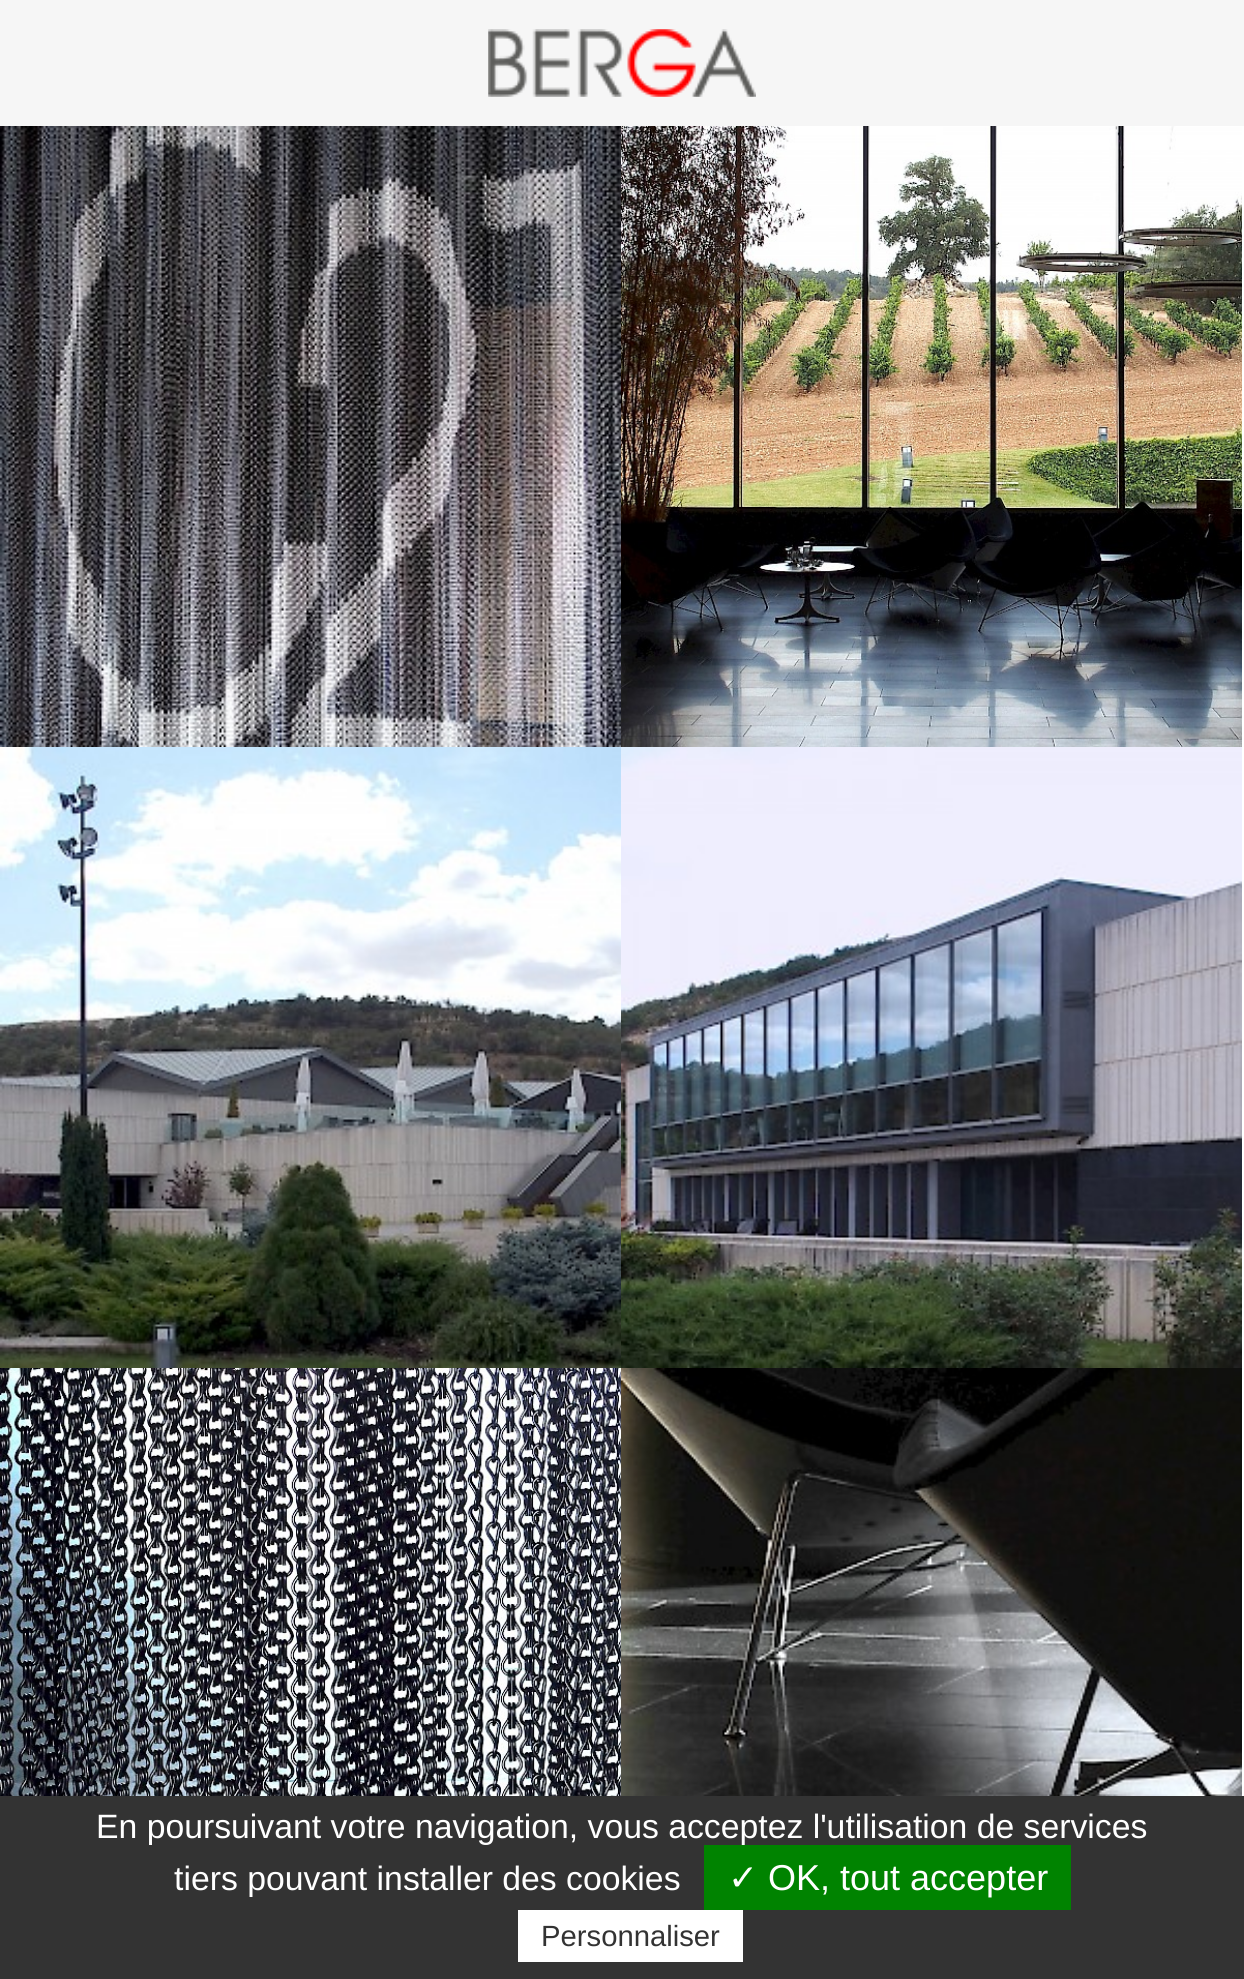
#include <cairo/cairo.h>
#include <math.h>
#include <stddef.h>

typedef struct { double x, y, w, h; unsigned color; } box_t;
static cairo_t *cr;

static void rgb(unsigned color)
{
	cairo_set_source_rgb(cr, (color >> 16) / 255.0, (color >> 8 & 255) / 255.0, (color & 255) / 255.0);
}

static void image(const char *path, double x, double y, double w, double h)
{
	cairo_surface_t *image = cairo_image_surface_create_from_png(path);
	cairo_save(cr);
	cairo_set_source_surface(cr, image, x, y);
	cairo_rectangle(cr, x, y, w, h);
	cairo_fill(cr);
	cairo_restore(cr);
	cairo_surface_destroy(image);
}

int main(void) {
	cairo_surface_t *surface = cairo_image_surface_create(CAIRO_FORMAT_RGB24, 1244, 1979);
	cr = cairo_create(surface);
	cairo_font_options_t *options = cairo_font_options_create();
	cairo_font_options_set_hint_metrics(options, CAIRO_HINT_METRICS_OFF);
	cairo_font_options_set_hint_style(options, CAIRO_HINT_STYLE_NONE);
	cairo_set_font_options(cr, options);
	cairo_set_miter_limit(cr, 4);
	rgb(0xffffff);
	cairo_paint(cr);
	rgb(0xf6f6f6);
	cairo_rectangle(cr, 0, 0, 1244, 126);
	cairo_fill(cr);
	image("img/1.png", 488, 29, 268, 68);
	image("img/2.png", 0, 126, 621, 621);
	image("img/3.png", 621, 126, 621, 621);
	image("img/4.png", 0, 747, 621, 621);
	image("img/5.png", 621, 747, 621, 621);
	image("img/6.png", 0, 1368, 621, 428);
	image("img/7.png", 621, 1368, 621, 428);
	{
		static const box_t items[] = {
			{0, 1796, 1244, 183, 0x333333},
			{704, 1845, 367, 65, 0x008300},
			{518, 1910, 225, 52, 0xffffff},
		};
		for (size_t i = 0; i < sizeof items / sizeof *items; i++) {
			rgb(items[i].color);
			cairo_rectangle(cr, items[i].x, items[i].y, items[i].w, items[i].h);
			cairo_fill(cr);
		}
	}
	cairo_select_font_face(cr, "Liberation Sans", CAIRO_FONT_SLANT_NORMAL, CAIRO_FONT_WEIGHT_NORMAL);
	cairo_set_font_size(cr, 33.75);
	cairo_move_to(cr, 96, 1838);
	cairo_show_text(cr, "En poursuivant votre navigation, vous acceptez l'utilisation de services");
	cairo_move_to(cr, 174, 1890);
	cairo_show_text(cr, "tiers pouvant installer des cookies");
	cairo_select_font_face(cr, "DejaVu Sans", CAIRO_FONT_SLANT_NORMAL, CAIRO_FONT_WEIGHT_NORMAL);
	cairo_set_font_size(cr, 36);
	cairo_move_to(cr, 728, 1890);
	cairo_show_text(cr, "✓");
	cairo_select_font_face(cr, "Liberation Sans", CAIRO_FONT_SLANT_NORMAL, CAIRO_FONT_WEIGHT_NORMAL);
	cairo_move_to(cr, 768, 1890);
	cairo_show_text(cr, "OK, tout accepter");
	cairo_set_font_size(cr, 29.25);
	rgb(0x333333);
	cairo_move_to(cr, 541, 1946);
	cairo_show_text(cr, "Personnaliser");
	cairo_surface_write_to_png(surface, "page.png");
	cairo_font_options_destroy(options);
	cairo_destroy(cr);
	cairo_surface_destroy(surface);
	return 0;
}
